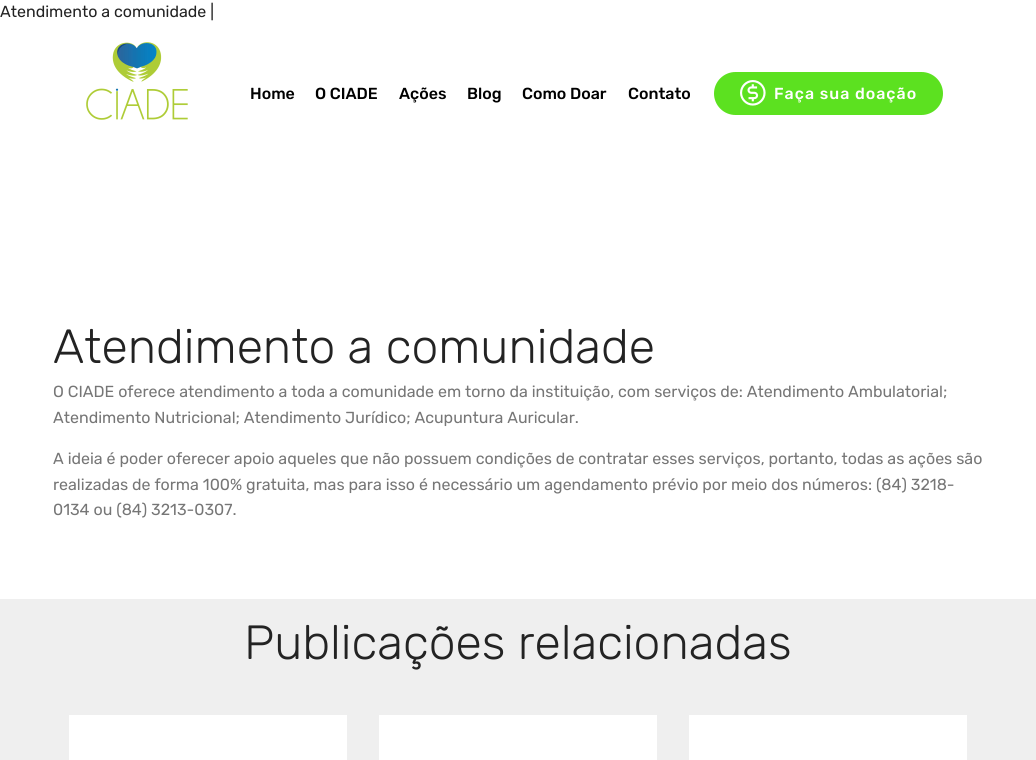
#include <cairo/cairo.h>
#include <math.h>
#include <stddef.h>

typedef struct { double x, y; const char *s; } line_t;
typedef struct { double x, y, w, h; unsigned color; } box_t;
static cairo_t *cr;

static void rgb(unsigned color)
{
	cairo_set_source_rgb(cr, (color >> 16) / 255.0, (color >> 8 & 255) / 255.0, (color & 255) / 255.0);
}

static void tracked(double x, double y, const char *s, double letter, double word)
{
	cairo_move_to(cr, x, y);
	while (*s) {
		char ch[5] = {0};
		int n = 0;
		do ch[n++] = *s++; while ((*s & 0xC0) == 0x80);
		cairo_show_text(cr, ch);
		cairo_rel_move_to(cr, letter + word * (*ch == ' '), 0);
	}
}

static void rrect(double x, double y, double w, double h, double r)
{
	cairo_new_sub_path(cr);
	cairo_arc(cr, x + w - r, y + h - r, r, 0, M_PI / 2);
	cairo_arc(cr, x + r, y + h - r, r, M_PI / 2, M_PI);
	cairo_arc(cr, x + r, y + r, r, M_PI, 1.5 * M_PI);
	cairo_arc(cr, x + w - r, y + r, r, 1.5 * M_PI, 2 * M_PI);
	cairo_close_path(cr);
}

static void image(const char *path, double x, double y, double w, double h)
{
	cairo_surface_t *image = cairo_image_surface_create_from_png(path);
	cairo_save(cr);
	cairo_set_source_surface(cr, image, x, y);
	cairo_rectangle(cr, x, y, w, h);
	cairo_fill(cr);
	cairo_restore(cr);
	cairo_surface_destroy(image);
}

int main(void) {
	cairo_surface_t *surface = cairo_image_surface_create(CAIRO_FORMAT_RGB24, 1036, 760);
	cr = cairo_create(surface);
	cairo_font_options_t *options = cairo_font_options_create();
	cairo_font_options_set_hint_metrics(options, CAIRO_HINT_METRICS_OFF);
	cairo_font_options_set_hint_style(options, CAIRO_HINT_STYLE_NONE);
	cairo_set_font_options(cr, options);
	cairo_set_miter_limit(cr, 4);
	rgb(0xffffff);
	cairo_paint(cr);
	image("img/1.png", 86, 42, 102, 78);
	rgb(0x5ce120);
	rrect(715, 73, 227, 41, 20.5);
	cairo_fill_preserve(cr);
	cairo_stroke(cr);
	image("img/2.png", 740, 80, 26, 26);
	{
		static const box_t items[] = {
			{0, 599, 1036, 161, 0xefefef},
			{69, 715, 278, 45, 0xffffff},
			{379, 715, 278, 45, 0xffffff},
			{689, 715, 278, 45, 0xffffff},
		};
		for (size_t i = 0; i < sizeof items / sizeof *items; i++) {
			rgb(items[i].color);
			cairo_rectangle(cr, items[i].x, items[i].y, items[i].w, items[i].h);
			cairo_fill(cr);
		}
	}
	cairo_select_font_face(cr, "Rubik", CAIRO_FONT_SLANT_NORMAL, CAIRO_FONT_WEIGHT_NORMAL);
	cairo_set_font_size(cr, 16);
	rgb(0x232323);
	cairo_move_to(cr, 0, 17);
	cairo_show_text(cr, "Atendimento a comunidade |");
	cairo_select_font_face(cr, "Rubik Medium", CAIRO_FONT_SLANT_NORMAL, CAIRO_FONT_WEIGHT_NORMAL);
	rgb(0x000000);
	{
		static const line_t items[] = {
			{250, 99, "Home"},
			{315, 99, "O CIADE"},
			{399, 99, "Ações"},
			{467, 99, "Blog"},
			{522, 99, "Como Doar"},
			{628, 99, "Contato"},
		};
		for (size_t i = 0; i < sizeof items / sizeof *items; i++) {
			cairo_move_to(cr, items[i].x, items[i].y);
			cairo_show_text(cr, items[i].s);
		}
	}
	rgb(0xffffff);
	tracked(774, 99, "Faça sua doação", 1, 0);
	cairo_select_font_face(cr, "Rubik Light", CAIRO_FONT_SLANT_NORMAL, CAIRO_FONT_WEIGHT_NORMAL);
	cairo_set_font_size(cr, 48);
	rgb(0x232323);
	cairo_move_to(cr, 53, 363);
	cairo_show_text(cr, "Atendimento a comunidade");
	cairo_select_font_face(cr, "Rubik", CAIRO_FONT_SLANT_NORMAL, CAIRO_FONT_WEIGHT_NORMAL);
	cairo_set_font_size(cr, 16);
	rgb(0x767676);
	{
		static const line_t items[] = {
			{53, 397, "O CIADE oferece atendimento a toda a comunidade em torno da instituição, com serviços de: Atendimento Ambulatorial;"},
			{53, 423, "Atendimento Nutricional; Atendimento Jurídico; Acupuntura Auricular."},
			{53, 464, "A ideia é poder oferecer apoio aqueles que não possuem condições de contratar esses serviços, portanto, todas as ações são"},
			{53, 490, "realizadas de forma 100% gratuita, mas para isso é necessário um agendamento prévio por meio dos números: (84) 3218-"},
			{53, 515, "0134 ou (84) 3213-0307."},
		};
		for (size_t i = 0; i < sizeof items / sizeof *items; i++) {
			cairo_move_to(cr, items[i].x, items[i].y);
			cairo_show_text(cr, items[i].s);
		}
	}
	cairo_select_font_face(cr, "Rubik Light", CAIRO_FONT_SLANT_NORMAL, CAIRO_FONT_WEIGHT_NORMAL);
	cairo_set_font_size(cr, 48);
	rgb(0x232323);
	cairo_move_to(cr, 244, 659);
	cairo_show_text(cr, "Publicações relacionadas");
	cairo_surface_write_to_png(surface, "page.png");
	cairo_font_options_destroy(options);
	cairo_destroy(cr);
	cairo_surface_destroy(surface);
	return 0;
}
